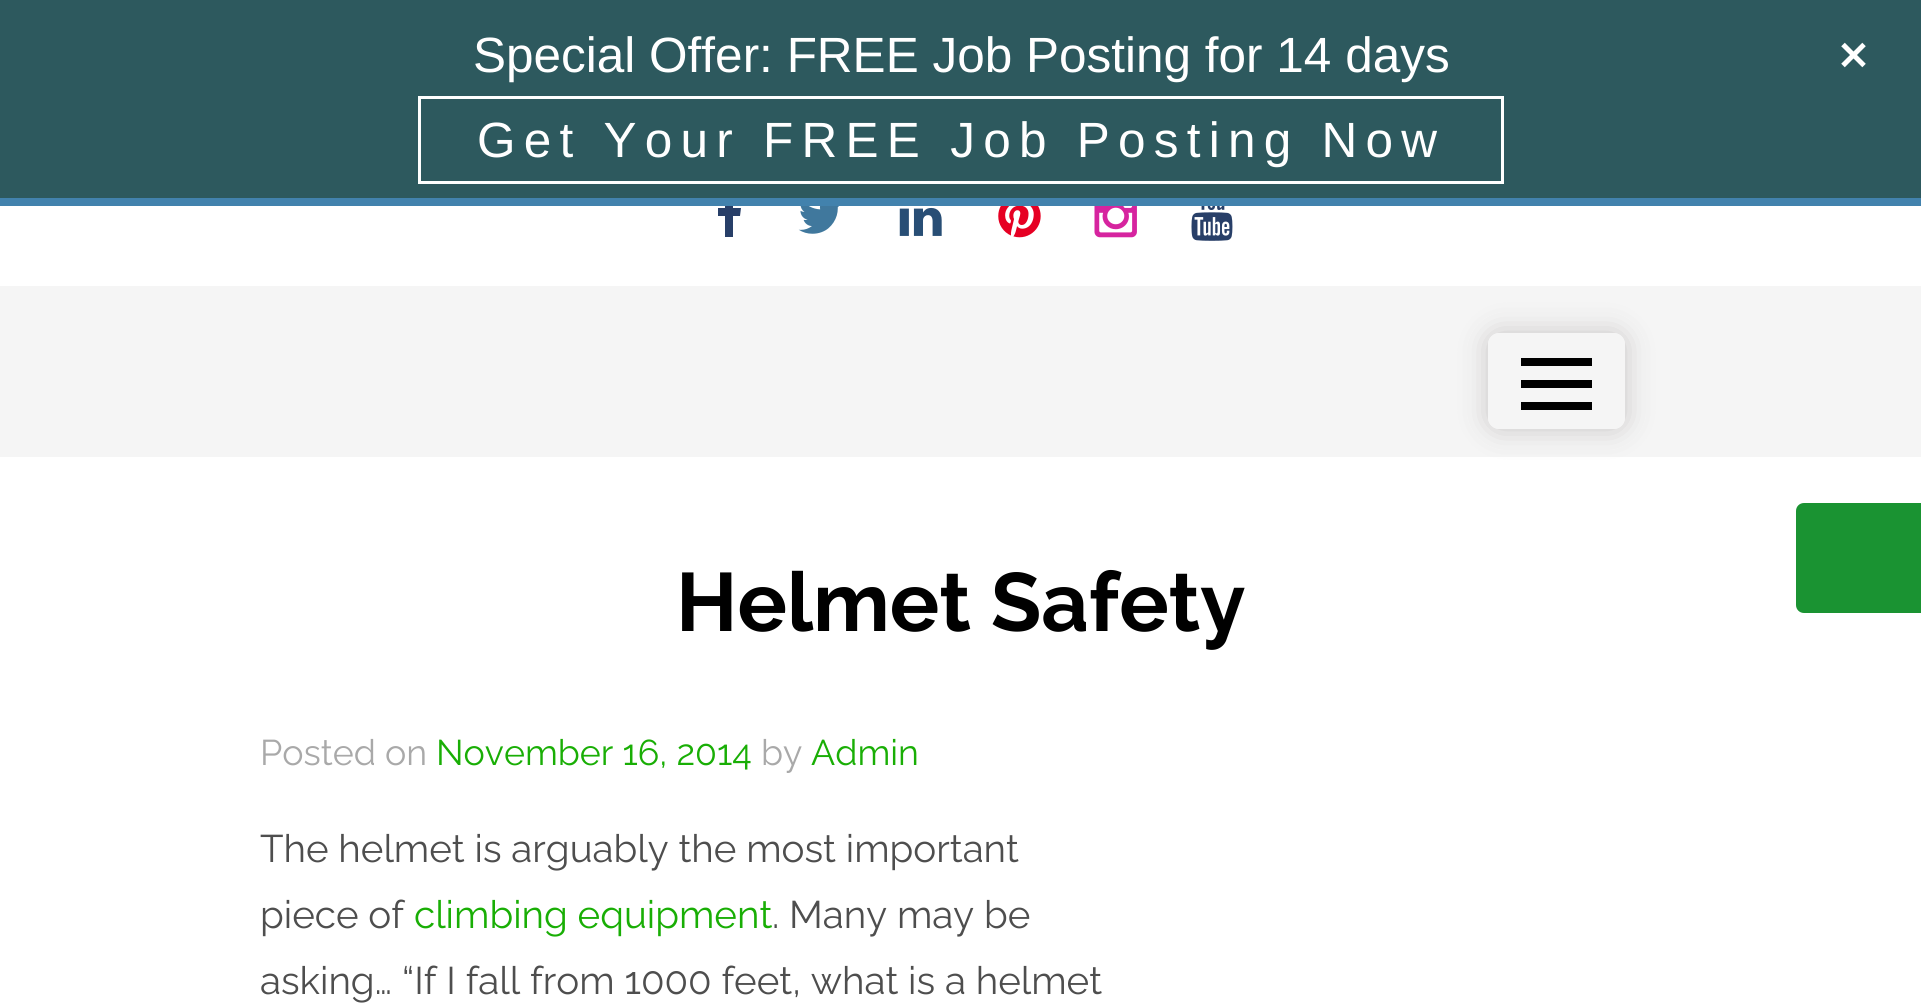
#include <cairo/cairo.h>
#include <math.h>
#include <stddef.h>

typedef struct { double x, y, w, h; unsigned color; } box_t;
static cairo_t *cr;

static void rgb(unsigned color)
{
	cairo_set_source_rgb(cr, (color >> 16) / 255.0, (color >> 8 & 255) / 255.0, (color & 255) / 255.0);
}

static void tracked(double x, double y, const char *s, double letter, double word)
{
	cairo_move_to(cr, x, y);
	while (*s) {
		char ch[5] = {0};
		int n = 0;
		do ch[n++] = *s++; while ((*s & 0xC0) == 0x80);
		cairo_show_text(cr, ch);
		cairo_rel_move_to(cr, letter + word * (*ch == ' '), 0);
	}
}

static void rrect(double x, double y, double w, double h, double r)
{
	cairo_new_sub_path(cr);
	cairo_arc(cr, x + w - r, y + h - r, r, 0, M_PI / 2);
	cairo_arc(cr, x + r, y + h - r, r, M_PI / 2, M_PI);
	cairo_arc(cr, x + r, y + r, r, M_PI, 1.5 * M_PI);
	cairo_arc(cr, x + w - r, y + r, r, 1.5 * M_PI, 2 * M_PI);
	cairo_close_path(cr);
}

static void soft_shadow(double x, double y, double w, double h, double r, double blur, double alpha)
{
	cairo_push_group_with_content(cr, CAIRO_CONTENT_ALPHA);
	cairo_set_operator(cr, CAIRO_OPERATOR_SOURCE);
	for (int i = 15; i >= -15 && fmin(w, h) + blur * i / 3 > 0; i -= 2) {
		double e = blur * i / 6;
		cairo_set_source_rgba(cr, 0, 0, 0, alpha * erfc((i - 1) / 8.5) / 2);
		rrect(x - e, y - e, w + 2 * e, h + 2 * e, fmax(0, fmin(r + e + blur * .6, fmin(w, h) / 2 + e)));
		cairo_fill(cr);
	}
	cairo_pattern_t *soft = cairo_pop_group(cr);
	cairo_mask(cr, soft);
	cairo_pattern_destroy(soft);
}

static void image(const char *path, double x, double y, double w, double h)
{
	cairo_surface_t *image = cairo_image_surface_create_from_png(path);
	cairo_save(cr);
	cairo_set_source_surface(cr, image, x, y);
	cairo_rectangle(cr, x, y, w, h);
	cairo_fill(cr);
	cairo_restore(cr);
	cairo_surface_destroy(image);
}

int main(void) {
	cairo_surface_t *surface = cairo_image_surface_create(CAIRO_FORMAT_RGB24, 1921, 1004);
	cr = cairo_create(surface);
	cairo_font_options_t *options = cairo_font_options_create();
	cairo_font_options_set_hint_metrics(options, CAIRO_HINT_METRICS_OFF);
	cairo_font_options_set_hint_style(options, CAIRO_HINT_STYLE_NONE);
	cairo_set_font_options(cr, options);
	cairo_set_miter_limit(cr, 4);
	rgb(0xffffff);
	cairo_paint(cr);
	rgb(0x283f68);
	cairo_new_path(cr);
	cairo_move_to(cr, 718, 216);
	cairo_line_to(cr, 718, 208);
	cairo_line_to(cr, 725, 208);
	cairo_line_to(cr, 725, 200);
	cairo_curve_to(cr, 726, 191, 735, 191, 741, 192);
	cairo_line_to(cr, 741, 199);
	cairo_curve_to(cr, 732, 199, 733, 199, 733, 208);
	cairo_line_to(cr, 741, 208);
	cairo_line_to(cr, 740, 216);
	cairo_line_to(cr, 733, 216);
	cairo_line_to(cr, 733, 237);
	cairo_line_to(cr, 725, 237);
	cairo_line_to(cr, 725, 216);
	cairo_close_path(cr);
	cairo_fill(cr);
	rgb(0x2d595e);
	cairo_rectangle(cr, 0, 0, 1921, 198);
	cairo_fill(cr);
	rgb(0x4282ad);
	cairo_rectangle(cr, 0, 198, 1921, 8);
	cairo_fill(cr);
	cairo_rectangle(cr, 419.5, 97.5, 1083, 85);
	rgb(0xffffff);
	cairo_set_line_width(cr, 3);
	cairo_stroke(cr);
	image("img/1.png", 1841, 42, 25, 26);
	image("img/2.png", 798, 206, 41, 28);
	image("img/3.png", 899, 207, 43, 29);
	image("img/4.png", 998, 206, 43, 32);
	image("img/5.png", 1094, 206, 43, 32);
	image("img/6.png", 1191, 206, 42, 35);
	rgb(0xf5f5f5);
	cairo_rectangle(cr, 0, 286, 1921, 171);
	cairo_fill(cr);
	cairo_save(cr);
	cairo_set_fill_rule(cr, CAIRO_FILL_RULE_EVEN_ODD);
	cairo_new_path(cr);
	cairo_move_to(cr, 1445, 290);
	cairo_line_to(cr, 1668, 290);
	cairo_line_to(cr, 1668, 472);
	cairo_line_to(cr, 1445, 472);
	cairo_close_path(cr);
	cairo_move_to(cr, 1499, 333);
	cairo_line_to(cr, 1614, 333);
	cairo_curve_to(cr, 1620, 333, 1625, 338, 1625, 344);
	cairo_line_to(cr, 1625, 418);
	cairo_curve_to(cr, 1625, 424, 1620, 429, 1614, 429);
	cairo_line_to(cr, 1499, 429);
	cairo_curve_to(cr, 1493, 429, 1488, 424, 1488, 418);
	cairo_line_to(cr, 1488, 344);
	cairo_curve_to(cr, 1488, 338, 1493, 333, 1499, 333);
	cairo_close_path(cr);
	cairo_clip(cr);
	rgb(0xc8c5c5);
	soft_shadow(1488, 333, 137, 96, 11, 14, 1);
	cairo_restore(cr);
	{
		static const box_t items[] = {
			{1521, 358, 71, 8, 0x000000},
			{1521, 380, 71, 8, 0x000000},
			{1521, 402, 71, 8, 0x000000},
		};
		for (size_t i = 0; i < sizeof items / sizeof *items; i++) {
			rgb(items[i].color);
			cairo_rectangle(cr, items[i].x, items[i].y, items[i].w, items[i].h);
			cairo_fill(cr);
		}
	}
	rgb(0x1a9332);
	cairo_new_path(cr);
	cairo_move_to(cr, 1804, 503);
	cairo_line_to(cr, 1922, 503);
	cairo_line_to(cr, 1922, 613);
	cairo_line_to(cr, 1804, 613);
	cairo_curve_to(cr, 1799.5, 613, 1796, 609.5, 1796, 605);
	cairo_line_to(cr, 1796, 511);
	cairo_curve_to(cr, 1796, 506.5, 1799.5, 503, 1804, 503);
	cairo_close_path(cr);
	cairo_fill(cr);
	cairo_select_font_face(cr, "Liberation Sans", CAIRO_FONT_SLANT_NORMAL, CAIRO_FONT_WEIGHT_NORMAL);
	cairo_set_font_size(cr, 49.5);
	rgb(0xffffff);
	cairo_move_to(cr, 473, 72);
	cairo_show_text(cr, "Special Offer: FREE Job Posting for 14 days");
	tracked(477, 157, "Get Your FREE Job Posting Now", 8.25, 0);
	cairo_select_font_face(cr, "Raleway", CAIRO_FONT_SLANT_NORMAL, CAIRO_FONT_WEIGHT_BOLD);
	cairo_set_font_size(cr, 82.5);
	rgb(0x000000);
	cairo_move_to(cr, 676, 631);
	cairo_show_text(cr, "Helmet Safety");
	cairo_select_font_face(cr, "Raleway", CAIRO_FONT_SLANT_NORMAL, CAIRO_FONT_WEIGHT_NORMAL);
	cairo_set_font_size(cr, 35.75);
	rgb(0xa9a9a9);
	cairo_move_to(cr, 260, 765);
	cairo_show_text(cr, "Posted on");
	rgb(0x19ae05);
	cairo_move_to(cr, 436, 765);
	cairo_show_text(cr, "November 16, 2014");
	rgb(0xa9a9a9);
	cairo_move_to(cr, 761, 765);
	cairo_show_text(cr, "by");
	rgb(0x19ae05);
	cairo_move_to(cr, 811, 765);
	cairo_show_text(cr, "Admin");
	cairo_set_font_size(cr, 38.5);
	rgb(0x4e4e4e);
	cairo_move_to(cr, 260, 862);
	cairo_show_text(cr, "The helmet is arguably the most important");
	cairo_move_to(cr, 260, 928);
	cairo_show_text(cr, "piece of");
	rgb(0x19ae05);
	cairo_move_to(cr, 414, 928);
	cairo_show_text(cr, "climbing equipment");
	rgb(0x4e4e4e);
	cairo_move_to(cr, 772, 928);
	cairo_show_text(cr, ". Many may be");
	cairo_move_to(cr, 260, 994);
	cairo_show_text(cr, "asking… “If I fall from 1000 feet, what is a helmet");
	cairo_surface_write_to_png(surface, "page.png");
	cairo_font_options_destroy(options);
	cairo_destroy(cr);
	cairo_surface_destroy(surface);
	return 0;
}
